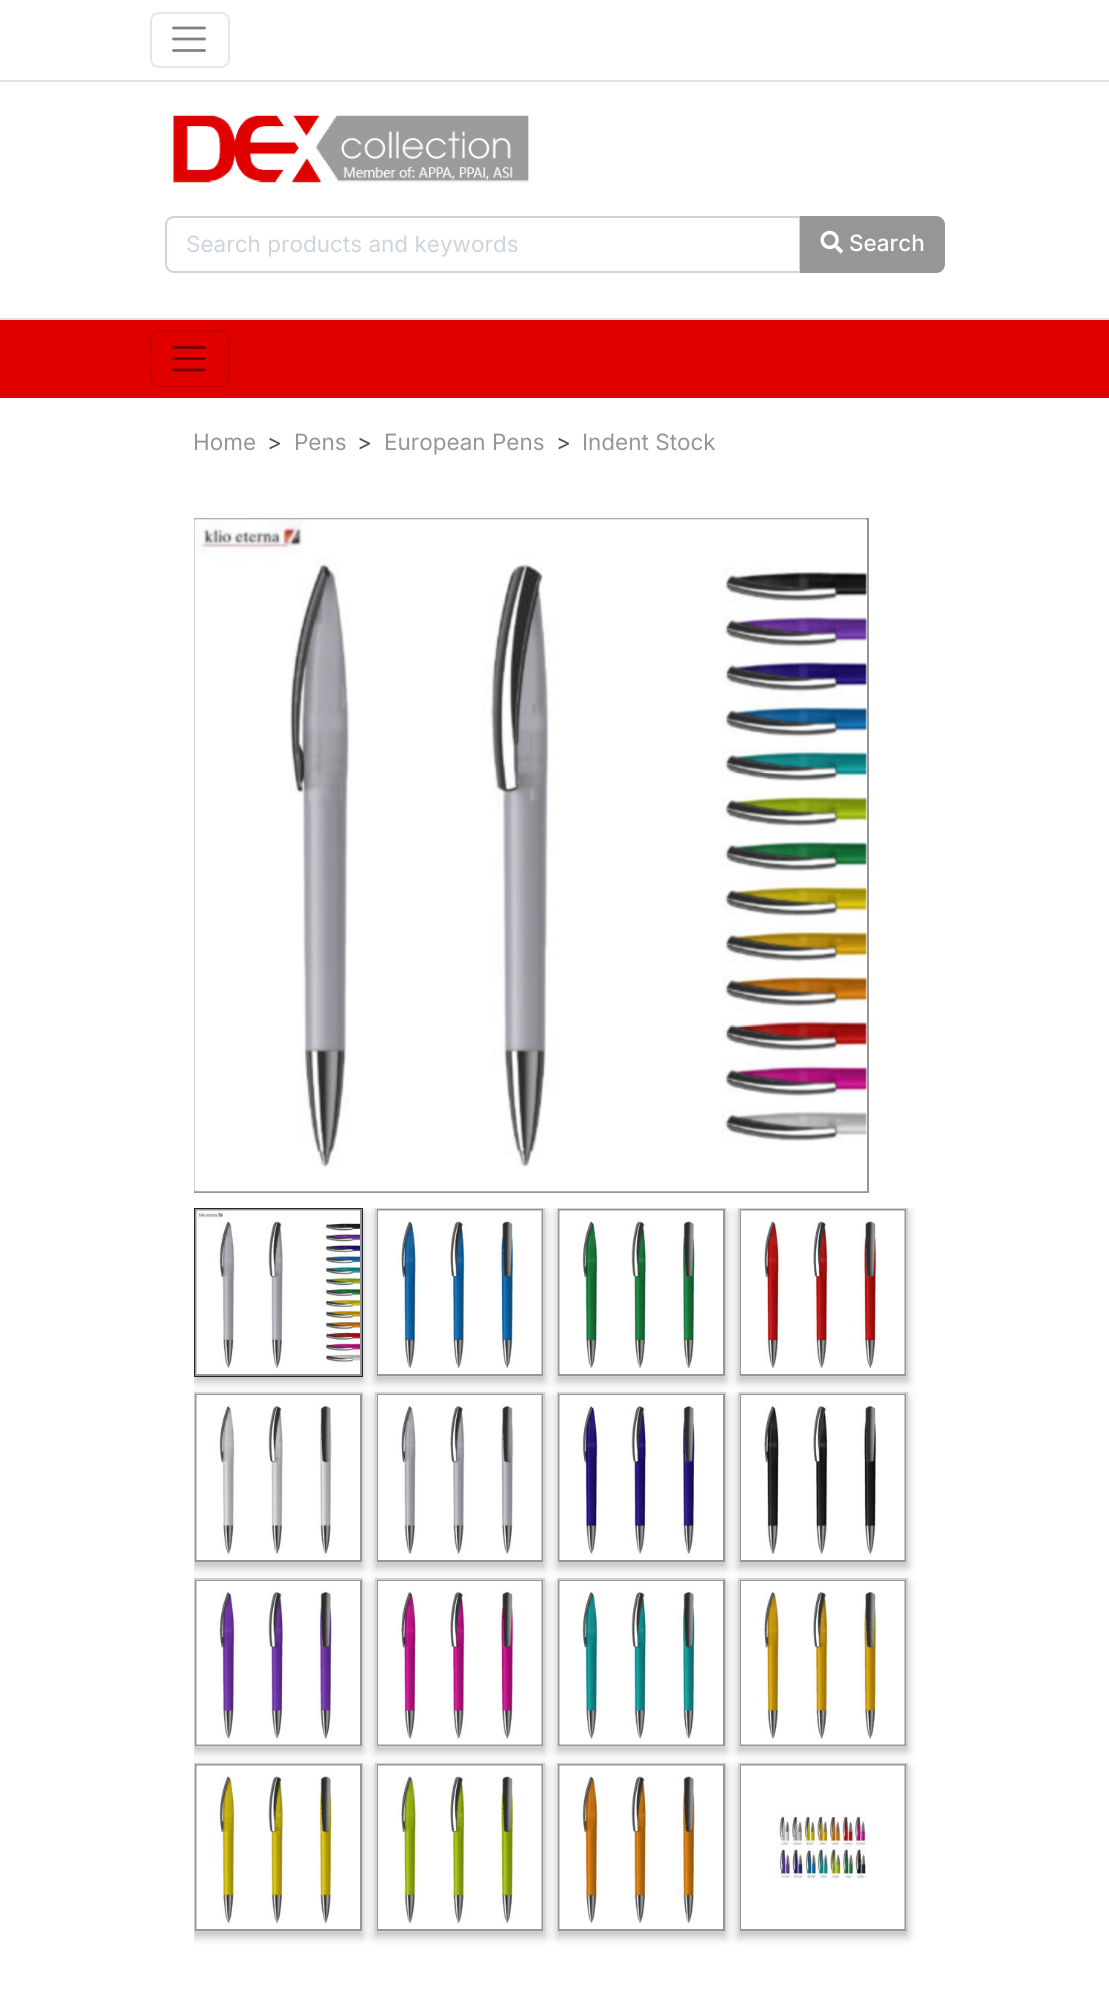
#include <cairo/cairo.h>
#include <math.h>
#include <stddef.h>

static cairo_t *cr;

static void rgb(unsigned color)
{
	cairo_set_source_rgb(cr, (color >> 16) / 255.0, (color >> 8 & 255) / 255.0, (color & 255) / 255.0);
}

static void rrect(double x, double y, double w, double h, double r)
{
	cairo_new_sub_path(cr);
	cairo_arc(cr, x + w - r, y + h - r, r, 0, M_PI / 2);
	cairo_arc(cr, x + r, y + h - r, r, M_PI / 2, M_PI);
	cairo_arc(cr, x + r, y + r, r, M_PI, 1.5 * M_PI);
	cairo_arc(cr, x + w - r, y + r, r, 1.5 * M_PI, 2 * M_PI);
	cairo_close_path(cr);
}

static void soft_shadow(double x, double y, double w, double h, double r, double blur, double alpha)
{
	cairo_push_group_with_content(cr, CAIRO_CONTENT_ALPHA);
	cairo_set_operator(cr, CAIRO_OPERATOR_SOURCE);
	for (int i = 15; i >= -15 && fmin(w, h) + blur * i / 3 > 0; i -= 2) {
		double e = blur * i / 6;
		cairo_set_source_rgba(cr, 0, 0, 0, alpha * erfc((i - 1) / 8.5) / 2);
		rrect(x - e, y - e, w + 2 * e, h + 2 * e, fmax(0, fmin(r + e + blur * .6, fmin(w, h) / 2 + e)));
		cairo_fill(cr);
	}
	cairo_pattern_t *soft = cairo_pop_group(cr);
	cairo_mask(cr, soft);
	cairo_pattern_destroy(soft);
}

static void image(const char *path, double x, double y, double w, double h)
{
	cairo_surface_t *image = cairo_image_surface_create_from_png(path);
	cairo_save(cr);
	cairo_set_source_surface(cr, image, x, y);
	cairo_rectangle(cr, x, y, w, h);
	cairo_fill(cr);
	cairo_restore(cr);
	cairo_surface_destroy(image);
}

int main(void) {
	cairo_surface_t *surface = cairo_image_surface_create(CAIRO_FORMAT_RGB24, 1109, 1996);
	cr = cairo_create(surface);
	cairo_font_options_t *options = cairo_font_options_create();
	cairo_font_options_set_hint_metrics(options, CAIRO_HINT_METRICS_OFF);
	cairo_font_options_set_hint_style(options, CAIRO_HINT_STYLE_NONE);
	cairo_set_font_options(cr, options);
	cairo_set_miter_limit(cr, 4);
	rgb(0xffffff);
	cairo_paint(cr);
	rgb(0xe4e4e4);
	cairo_rectangle(cr, 0, 80, 1109, 2);
	cairo_fill(cr);
	rrect(151, 13, 78, 54, 8);
	rgb(0xe6e6e6);
	cairo_stroke(cr);
	cairo_new_path(cr);
	cairo_move_to(cr, 173.5, 28);
	cairo_line_to(cr, 204.5, 28);
	cairo_move_to(cr, 173.5, 39);
	cairo_line_to(cr, 204.5, 39);
	cairo_move_to(cr, 173.5, 50.5);
	cairo_line_to(cr, 204.5, 50.5);
	rgb(0x808080);
	cairo_set_line_width(cr, 2.8);
	cairo_set_line_cap(cr, CAIRO_LINE_CAP_ROUND);
	cairo_stroke(cr);
	rgb(0xe4e4e4);
	cairo_rectangle(cr, 0, 318, 1109, 2);
	cairo_fill(cr);
	image("img/1.png", 173, 115, 356, 68);
	cairo_new_path(cr);
	cairo_move_to(cr, 174, 217);
	cairo_line_to(cr, 800, 217);
	cairo_line_to(cr, 800, 272);
	cairo_line_to(cr, 174, 272);
	cairo_curve_to(cr, 169.5, 272, 166, 268.5, 166, 264);
	cairo_line_to(cr, 166, 225);
	cairo_curve_to(cr, 166, 220.5, 169.5, 217, 174, 217);
	cairo_close_path(cr);
	rgb(0xced4da);
	cairo_set_line_width(cr, 2);
	cairo_set_line_cap(cr, CAIRO_LINE_CAP_BUTT);
	cairo_stroke(cr);
	rgb(0x969696);
	cairo_new_path(cr);
	cairo_move_to(cr, 801, 217);
	cairo_line_to(cr, 936, 217);
	cairo_curve_to(cr, 940.5, 217, 944, 220.5, 944, 225);
	cairo_line_to(cr, 944, 264);
	cairo_curve_to(cr, 944, 268.5, 940.5, 272, 936, 272);
	cairo_line_to(cr, 801, 272);
	cairo_close_path(cr);
	cairo_fill_preserve(cr);
	cairo_stroke(cr);
	image("img/2.png", 820, 230, 23, 24);
	rgb(0xe00000);
	cairo_rectangle(cr, 0, 320, 1109, 78);
	cairo_fill(cr);
	rrect(151, 331, 78, 55, 8);
	rgb(0xca0000);
	cairo_stroke(cr);
	cairo_new_path(cr);
	cairo_move_to(cr, 173.5, 347.5);
	cairo_line_to(cr, 204.5, 347.5);
	cairo_move_to(cr, 173.5, 358.5);
	cairo_line_to(cr, 204.5, 358.5);
	cairo_move_to(cr, 173.5, 370);
	cairo_line_to(cr, 204.5, 370);
	rgb(0x700000);
	cairo_set_line_width(cr, 2.8);
	cairo_set_line_cap(cr, CAIRO_LINE_CAP_ROUND);
	cairo_stroke(cr);
	cairo_rectangle(cr, 195, 519, 673, 673);
	rgb(0x969696);
	cairo_set_line_width(cr, 2);
	cairo_set_line_cap(cr, CAIRO_LINE_CAP_BUTT);
	cairo_stroke(cr);
	image("img/3.png", 194, 518, 673, 674);
	cairo_save(cr);
	cairo_rectangle(cr, 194, 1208, 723, 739);
	cairo_clip(cr);
	rgb(0x867e7e);
	soft_shadow(194, 1212, 169, 170, 0, 4.5, 0.5);
	cairo_restore(cr);
	cairo_rectangle(cr, 195, 1209, 167, 167);
	rgb(0x212529);
	cairo_stroke(cr);
	cairo_rectangle(cr, 196, 1210, 165, 165);
	rgb(0x969696);
	cairo_stroke(cr);
	image("img/4.png", 196, 1210, 164, 164);
	cairo_save(cr);
	cairo_rectangle(cr, 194, 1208, 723, 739);
	cairo_clip(cr);
	rgb(0x867e7e);
	soft_shadow(375, 1212, 170, 170, 0, 4.5, 0.5);
	cairo_restore(cr);
	cairo_rectangle(cr, 376, 1209, 168, 167);
	rgb(0xd2d2d2);
	cairo_stroke(cr);
	cairo_rectangle(cr, 378, 1210, 164, 165);
	rgb(0x969696);
	cairo_stroke(cr);
	image("img/5.png", 378, 1210, 164, 164);
	cairo_save(cr);
	cairo_rectangle(cr, 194, 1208, 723, 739);
	cairo_clip(cr);
	rgb(0x867e7e);
	soft_shadow(557, 1212, 169, 170, 0, 4.5, 0.5);
	cairo_restore(cr);
	cairo_rectangle(cr, 558, 1209, 167, 167);
	rgb(0xd2d2d2);
	cairo_stroke(cr);
	cairo_rectangle(cr, 559, 1210, 165, 165);
	rgb(0x969696);
	cairo_stroke(cr);
	image("img/6.png", 559, 1210, 164, 164);
	cairo_save(cr);
	cairo_rectangle(cr, 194, 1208, 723, 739);
	cairo_clip(cr);
	rgb(0x867e7e);
	soft_shadow(738, 1212, 170, 170, 0, 4.5, 0.5);
	cairo_restore(cr);
	cairo_rectangle(cr, 739, 1209, 168, 167);
	rgb(0xd2d2d2);
	cairo_stroke(cr);
	cairo_rectangle(cr, 741, 1210, 164, 165);
	rgb(0x969696);
	cairo_stroke(cr);
	image("img/7.png", 741, 1210, 164, 164);
	cairo_save(cr);
	cairo_rectangle(cr, 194, 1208, 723, 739);
	cairo_clip(cr);
	rgb(0x867e7e);
	soft_shadow(194, 1397, 169, 171, 0, 4.5, 0.5);
	cairo_restore(cr);
	cairo_rectangle(cr, 195, 1393, 167, 169);
	rgb(0xd2d2d2);
	cairo_stroke(cr);
	cairo_rectangle(cr, 196, 1395, 165, 166);
	rgb(0x969696);
	cairo_stroke(cr);
	image("img/8.png", 196, 1395, 164, 165);
	rgb(0x867e7e);
	soft_shadow(375, 1397, 170, 171, 0, 4.5, 0.5);
	cairo_rectangle(cr, 376, 1393, 168, 169);
	rgb(0xd2d2d2);
	cairo_stroke(cr);
	cairo_rectangle(cr, 378, 1395, 164, 166);
	rgb(0x969696);
	cairo_stroke(cr);
	image("img/9.png", 378, 1395, 164, 165);
	rgb(0x867e7e);
	soft_shadow(557, 1397, 169, 171, 0, 4.5, 0.5);
	cairo_rectangle(cr, 558, 1393, 167, 169);
	rgb(0xd2d2d2);
	cairo_stroke(cr);
	cairo_rectangle(cr, 559, 1395, 165, 166);
	rgb(0x969696);
	cairo_stroke(cr);
	image("img/10.png", 559, 1395, 164, 165);
	rgb(0x867e7e);
	soft_shadow(738, 1397, 170, 171, 0, 4.5, 0.5);
	cairo_rectangle(cr, 739, 1393, 168, 169);
	rgb(0xd2d2d2);
	cairo_stroke(cr);
	cairo_rectangle(cr, 741, 1395, 164, 166);
	rgb(0x969696);
	cairo_stroke(cr);
	image("img/11.png", 741, 1395, 164, 165);
	cairo_save(cr);
	cairo_rectangle(cr, 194, 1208, 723, 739);
	cairo_clip(cr);
	rgb(0x867e7e);
	soft_shadow(194, 1583, 169, 169, 0, 4.5, 0.5);
	cairo_restore(cr);
	cairo_rectangle(cr, 195, 1579, 167, 168);
	rgb(0xd2d2d2);
	cairo_stroke(cr);
	cairo_rectangle(cr, 196, 1581, 165, 164);
	rgb(0x969696);
	cairo_stroke(cr);
	image("img/12.png", 196, 1581, 164, 164);
	rgb(0x867e7e);
	soft_shadow(375, 1583, 170, 169, 0, 4.5, 0.5);
	cairo_rectangle(cr, 376, 1579, 168, 168);
	rgb(0xd2d2d2);
	cairo_stroke(cr);
	cairo_rectangle(cr, 378, 1581, 164, 164);
	rgb(0x969696);
	cairo_stroke(cr);
	image("img/13.png", 378, 1581, 164, 164);
	rgb(0x867e7e);
	soft_shadow(557, 1583, 169, 169, 0, 4.5, 0.5);
	cairo_rectangle(cr, 558, 1579, 167, 168);
	rgb(0xd2d2d2);
	cairo_stroke(cr);
	cairo_rectangle(cr, 559, 1581, 165, 164);
	rgb(0x969696);
	cairo_stroke(cr);
	image("img/14.png", 559, 1581, 164, 164);
	rgb(0x867e7e);
	soft_shadow(738, 1583, 170, 169, 0, 4.5, 0.5);
	cairo_rectangle(cr, 739, 1579, 168, 168);
	rgb(0xd2d2d2);
	cairo_stroke(cr);
	cairo_rectangle(cr, 741, 1581, 164, 164);
	rgb(0x969696);
	cairo_stroke(cr);
	image("img/15.png", 741, 1581, 164, 164);
	cairo_save(cr);
	cairo_rectangle(cr, 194, 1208, 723, 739);
	cairo_clip(cr);
	rgb(0x867e7e);
	soft_shadow(194, 1767, 169, 170, 0, 4.5, 0.5);
	cairo_restore(cr);
	cairo_rectangle(cr, 195, 1764, 167, 167);
	rgb(0xd2d2d2);
	cairo_stroke(cr);
	cairo_rectangle(cr, 196, 1765, 165, 165);
	rgb(0x969696);
	cairo_stroke(cr);
	image("img/16.png", 196, 1765, 164, 164);
	rgb(0x867e7e);
	soft_shadow(375, 1767, 170, 170, 0, 4.5, 0.5);
	cairo_rectangle(cr, 376, 1764, 168, 167);
	rgb(0xd2d2d2);
	cairo_stroke(cr);
	cairo_rectangle(cr, 378, 1765, 164, 165);
	rgb(0x969696);
	cairo_stroke(cr);
	image("img/17.png", 378, 1765, 164, 164);
	rgb(0x867e7e);
	soft_shadow(557, 1767, 169, 170, 0, 4.5, 0.5);
	cairo_rectangle(cr, 558, 1764, 167, 167);
	rgb(0xd2d2d2);
	cairo_stroke(cr);
	cairo_rectangle(cr, 559, 1765, 165, 165);
	rgb(0x969696);
	cairo_stroke(cr);
	image("img/18.png", 559, 1765, 164, 164);
	rgb(0x867e7e);
	soft_shadow(738, 1767, 170, 170, 0, 4.5, 0.5);
	cairo_rectangle(cr, 739, 1764, 168, 167);
	rgb(0xd2d2d2);
	cairo_stroke(cr);
	cairo_rectangle(cr, 741, 1765, 164, 165);
	rgb(0x969696);
	cairo_stroke(cr);
	image("img/19.png", 741, 1765, 164, 164);
	cairo_select_font_face(cr, "Inter", CAIRO_FONT_SLANT_NORMAL, CAIRO_FONT_WEIGHT_NORMAL);
	cairo_set_font_size(cr, 22.5);
	rgb(0xced4da);
	cairo_move_to(cr, 186, 252);
	cairo_show_text(cr, "Search products and keywords");
	cairo_select_font_face(cr, "Inter Medium", CAIRO_FONT_SLANT_NORMAL, CAIRO_FONT_WEIGHT_NORMAL);
	rgb(0xffffff);
	cairo_move_to(cr, 849, 251);
	cairo_show_text(cr, "Search");
	cairo_select_font_face(cr, "Inter", CAIRO_FONT_SLANT_NORMAL, CAIRO_FONT_WEIGHT_NORMAL);
	rgb(0x969696);
	cairo_move_to(cr, 193, 450);
	cairo_show_text(cr, "Home");
	rgb(0x545454);
	cairo_move_to(cr, 267, 450);
	cairo_show_text(cr, ">");
	rgb(0x969696);
	cairo_move_to(cr, 294, 450);
	cairo_show_text(cr, "Pens");
	rgb(0x545454);
	cairo_move_to(cr, 357, 450);
	cairo_show_text(cr, ">");
	rgb(0x969696);
	cairo_move_to(cr, 384, 450);
	cairo_show_text(cr, "European Pens");
	rgb(0x545454);
	cairo_move_to(cr, 556, 450);
	cairo_show_text(cr, ">");
	rgb(0x969696);
	cairo_move_to(cr, 582, 450);
	cairo_show_text(cr, "Indent Stock");
	cairo_surface_write_to_png(surface, "page.png");
	cairo_font_options_destroy(options);
	cairo_destroy(cr);
	cairo_surface_destroy(surface);
	return 0;
}
